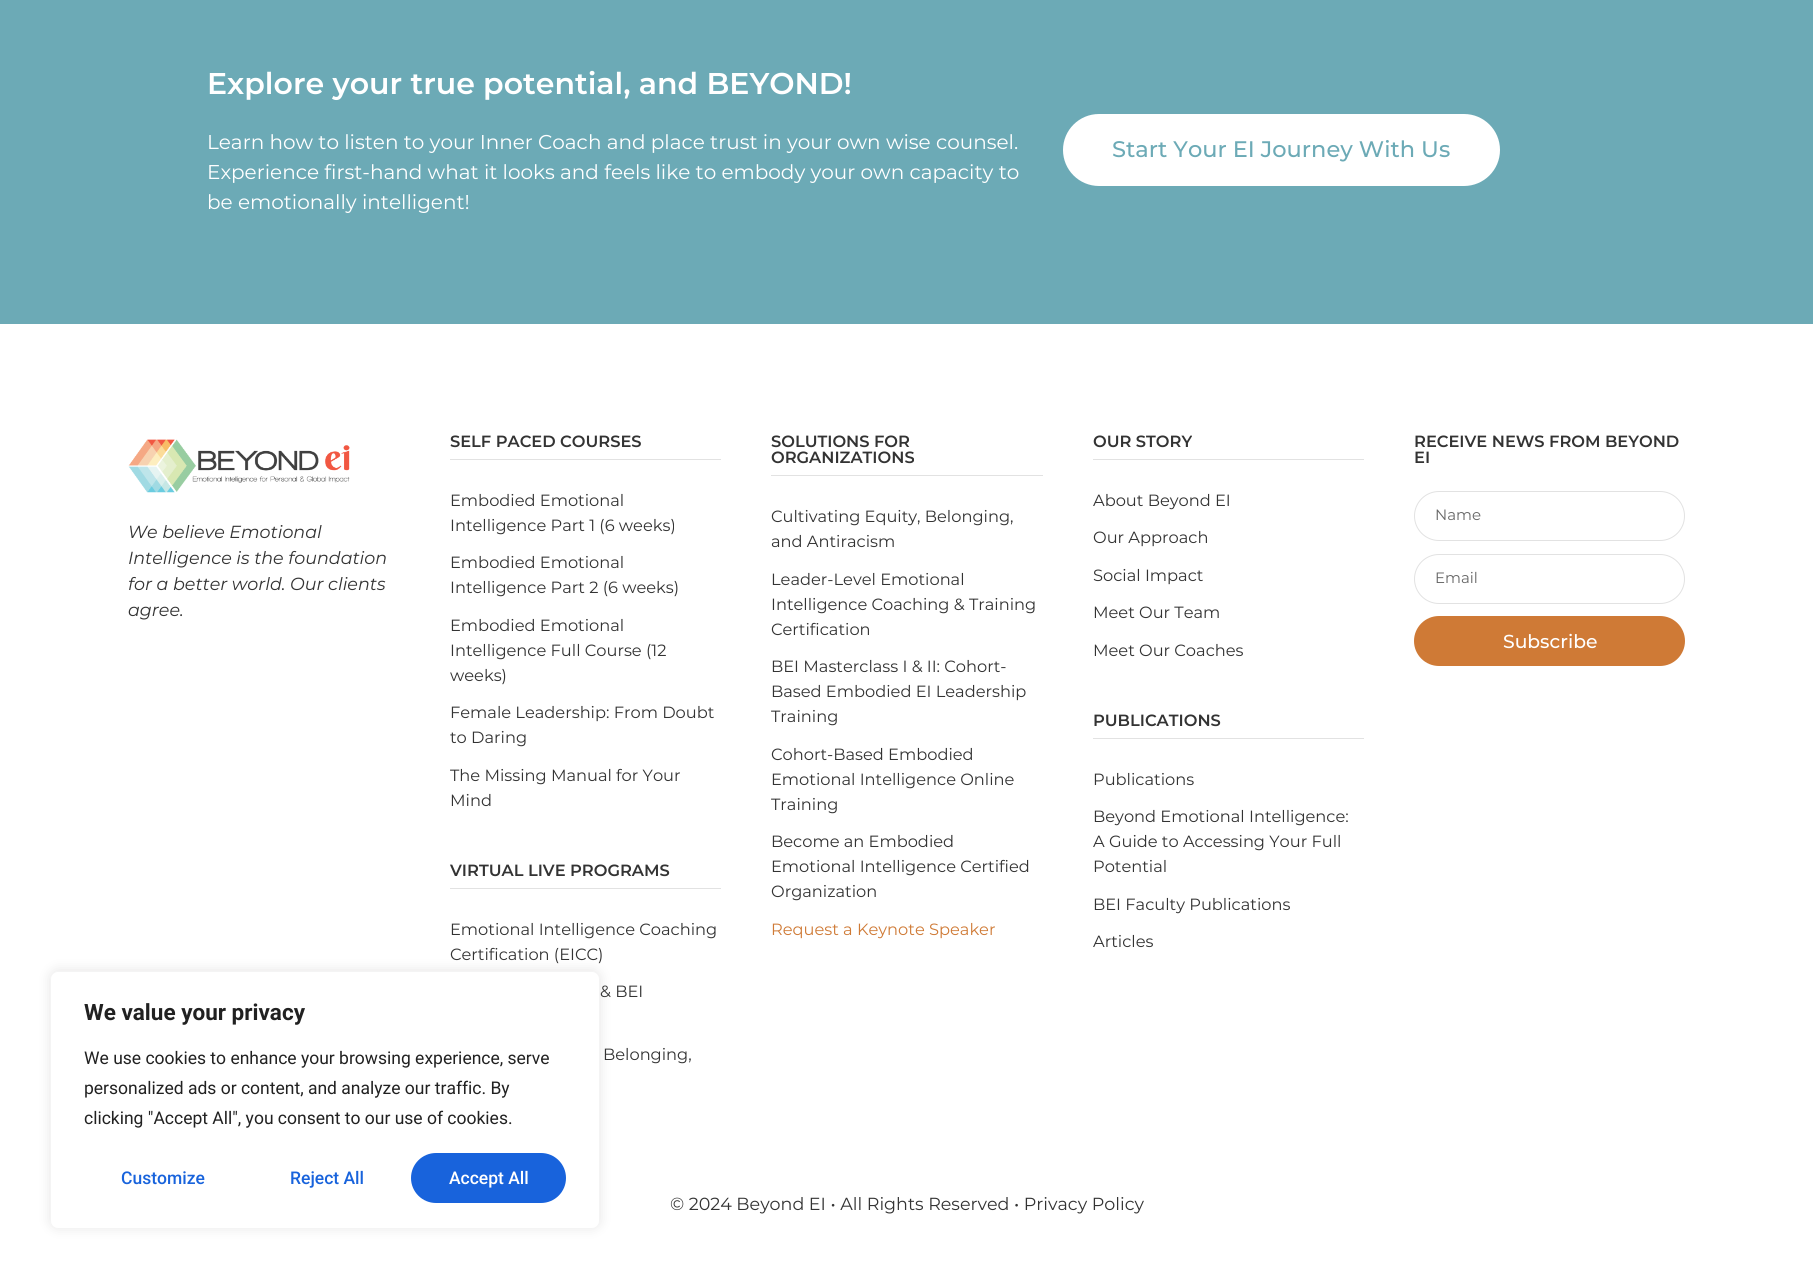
#include <cairo/cairo.h>
#include <math.h>
#include <stddef.h>

typedef struct { double x, y; const char *s; } line_t;
typedef struct { double x, y, w, h; unsigned color; } box_t;
static cairo_t *cr;

static void rgb(unsigned color)
{
	cairo_set_source_rgb(cr, (color >> 16) / 255.0, (color >> 8 & 255) / 255.0, (color & 255) / 255.0);
}

static void rrect(double x, double y, double w, double h, double r)
{
	cairo_new_sub_path(cr);
	cairo_arc(cr, x + w - r, y + h - r, r, 0, M_PI / 2);
	cairo_arc(cr, x + r, y + h - r, r, M_PI / 2, M_PI);
	cairo_arc(cr, x + r, y + r, r, M_PI, 1.5 * M_PI);
	cairo_arc(cr, x + w - r, y + r, r, 1.5 * M_PI, 2 * M_PI);
	cairo_close_path(cr);
}

static void soft_shadow(double x, double y, double w, double h, double r, double blur, double alpha)
{
	cairo_push_group_with_content(cr, CAIRO_CONTENT_ALPHA);
	cairo_set_operator(cr, CAIRO_OPERATOR_SOURCE);
	for (int i = 15; i >= -15 && fmin(w, h) + blur * i / 3 > 0; i -= 2) {
		double e = blur * i / 6;
		cairo_set_source_rgba(cr, 0, 0, 0, alpha * erfc((i - 1) / 8.5) / 2);
		rrect(x - e, y - e, w + 2 * e, h + 2 * e, fmax(0, fmin(r + e + blur * .6, fmin(w, h) / 2 + e)));
		cairo_fill(cr);
	}
	cairo_pattern_t *soft = cairo_pop_group(cr);
	cairo_mask(cr, soft);
	cairo_pattern_destroy(soft);
}

static void image(const char *path, double x, double y, double w, double h)
{
	cairo_surface_t *image = cairo_image_surface_create_from_png(path);
	cairo_save(cr);
	cairo_set_source_surface(cr, image, x, y);
	cairo_rectangle(cr, x, y, w, h);
	cairo_fill(cr);
	cairo_restore(cr);
	cairo_surface_destroy(image);
}

int main(void) {
	cairo_surface_t *surface = cairo_image_surface_create(CAIRO_FORMAT_RGB24, 1813, 1278);
	cr = cairo_create(surface);
	cairo_font_options_t *options = cairo_font_options_create();
	cairo_font_options_set_hint_metrics(options, CAIRO_HINT_METRICS_OFF);
	cairo_font_options_set_hint_style(options, CAIRO_HINT_STYLE_NONE);
	cairo_set_font_options(cr, options);
	cairo_set_miter_limit(cr, 4);
	rgb(0xffffff);
	cairo_paint(cr);
	rgb(0x6caab6);
	cairo_rectangle(cr, 0, 0, 1813, 324);
	cairo_fill(cr);
	rgb(0xffffff);
	rrect(1063, 114, 437, 72, 36);
	cairo_fill(cr);
	image("img/1.png", 128, 439, 222, 54);
	{
		static const box_t items[] = {
			{450, 459, 271, 1, 0xe2e2e2},
			{450, 888, 271, 1, 0xe2e2e2},
			{771, 475, 272, 1, 0xe2e2e2},
			{1093, 459, 271, 1, 0xe2e2e2},
			{1093, 738, 271, 1, 0xe2e2e2},
		};
		for (size_t i = 0; i < sizeof items / sizeof *items; i++) {
			rgb(items[i].color);
			cairo_rectangle(cr, items[i].x, items[i].y, items[i].w, items[i].h);
			cairo_fill(cr);
		}
	}
	rrect(1414.5, 491.5, 270, 49, 24.5);
	cairo_set_line_width(cr, 1);
	cairo_stroke(cr);
	rrect(1414.5, 554.5, 270, 49, 24.5);
	cairo_stroke(cr);
	rgb(0xcf7a36);
	rrect(1414, 616, 271, 50, 25);
	cairo_fill(cr);
	rgb(0xacabab);
	soft_shadow(50, 970, 550, 258, 8, 6, 0.3);
	rgb(0xffffff);
	rrect(50.5, 971.5, 549, 257, 7.5);
	cairo_fill_preserve(cr);
	rgb(0xf4f4f4);
	cairo_stroke(cr);
	rgb(0x1863dc);
	rrect(411, 1153, 155, 50, 25);
	cairo_fill(cr);
	cairo_select_font_face(cr, "Montserrat SemiBold", CAIRO_FONT_SLANT_NORMAL, CAIRO_FONT_WEIGHT_NORMAL);
	cairo_set_font_size(cr, 30);
	rgb(0xffffff);
	cairo_move_to(cr, 207, 94);
	cairo_show_text(cr, "Explore your true potential, and BEYOND!");
	cairo_select_font_face(cr, "Montserrat", CAIRO_FONT_SLANT_NORMAL, CAIRO_FONT_WEIGHT_NORMAL);
	cairo_set_font_size(cr, 20);
	{
		static const line_t items[] = {
			{207, 149, "Learn how to listen to your Inner Coach and place trust in your own wise counsel."},
			{207, 179, "Experience first-hand what it looks and feels like to embody your own capacity to"},
			{207, 209, "be emotionally intelligent!"},
		};
		for (size_t i = 0; i < sizeof items / sizeof *items; i++) {
			cairo_move_to(cr, items[i].x, items[i].y);
			cairo_show_text(cr, items[i].s);
		}
	}
	cairo_select_font_face(cr, "Montserrat Medium", CAIRO_FONT_SLANT_NORMAL, CAIRO_FONT_WEIGHT_NORMAL);
	cairo_set_font_size(cr, 22.5);
	rgb(0x6caab6);
	cairo_move_to(cr, 1112, 157);
	cairo_show_text(cr, "Start Your EI Journey With Us");
	cairo_select_font_face(cr, "Montserrat", CAIRO_FONT_SLANT_ITALIC, CAIRO_FONT_WEIGHT_NORMAL);
	cairo_set_font_size(cr, 17.5);
	rgb(0x333333);
	{
		static const line_t items[] = {
			{128, 538, "We believe Emotional"},
			{128, 564, "Intelligence is the foundation"},
			{128, 590, "for a better world. Our clients"},
			{128, 616, "agree."},
		};
		for (size_t i = 0; i < sizeof items / sizeof *items; i++) {
			cairo_move_to(cr, items[i].x, items[i].y);
			cairo_show_text(cr, items[i].s);
		}
	}
	cairo_select_font_face(cr, "Montserrat SemiBold", CAIRO_FONT_SLANT_NORMAL, CAIRO_FONT_WEIGHT_NORMAL);
	cairo_set_font_size(cr, 16.25);
	cairo_move_to(cr, 450, 447);
	cairo_show_text(cr, "SELF PACED COURSES");
	cairo_select_font_face(cr, "Montserrat", CAIRO_FONT_SLANT_NORMAL, CAIRO_FONT_WEIGHT_NORMAL);
	{
		static const line_t items[] = {
			{450, 506, "Embodied Emotional"},
			{450, 531, "Intelligence Part 1 (6 weeks)"},
			{450, 568, "Embodied Emotional"},
			{450, 593, "Intelligence Part 2 (6 weeks)"},
			{450, 631, "Embodied Emotional"},
			{450, 656, "Intelligence Full Course (12"},
			{450, 681, "weeks)"},
			{450, 718, "Female Leadership: From Doubt"},
			{450, 743, "to Daring"},
			{450, 781, "The Missing Manual for Your"},
			{450, 806, "Mind"},
		};
		for (size_t i = 0; i < sizeof items / sizeof *items; i++) {
			cairo_move_to(cr, items[i].x, items[i].y);
			cairo_show_text(cr, items[i].s);
		}
	}
	cairo_select_font_face(cr, "Montserrat SemiBold", CAIRO_FONT_SLANT_NORMAL, CAIRO_FONT_WEIGHT_NORMAL);
	cairo_move_to(cr, 450, 876);
	cairo_show_text(cr, "VIRTUAL LIVE PROGRAMS");
	cairo_select_font_face(cr, "Montserrat", CAIRO_FONT_SLANT_NORMAL, CAIRO_FONT_WEIGHT_NORMAL);
	{
		static const line_t items[] = {
			{450, 935, "Emotional Intelligence Coaching"},
			{450, 960, "Certification (EICC)"},
			{600, 997, "& BEI"},
			{603, 1060, "Belonging,"},
		};
		for (size_t i = 0; i < sizeof items / sizeof *items; i++) {
			cairo_move_to(cr, items[i].x, items[i].y);
			cairo_show_text(cr, items[i].s);
		}
	}
	cairo_select_font_face(cr, "Montserrat SemiBold", CAIRO_FONT_SLANT_NORMAL, CAIRO_FONT_WEIGHT_NORMAL);
	cairo_move_to(cr, 771, 447);
	cairo_show_text(cr, "SOLUTIONS FOR");
	cairo_move_to(cr, 771, 463);
	cairo_show_text(cr, "ORGANIZATIONS");
	cairo_select_font_face(cr, "Montserrat", CAIRO_FONT_SLANT_NORMAL, CAIRO_FONT_WEIGHT_NORMAL);
	{
		static const line_t items[] = {
			{771, 522, "Cultivating Equity, Belonging,"},
			{771, 547, "and Antiracism"},
			{771, 585, "Leader-Level Emotional"},
			{771, 610, "Intelligence Coaching & Training"},
			{771, 635, "Certification"},
			{771, 672, "BEI Masterclass I & II: Cohort-"},
			{771, 697, "Based Embodied EI Leadership"},
			{771, 722, "Training"},
			{771, 760, "Cohort-Based Embodied"},
			{771, 785, "Emotional Intelligence Online"},
			{771, 810, "Training"},
			{771, 847, "Become an Embodied"},
			{771, 872, "Emotional Intelligence Certified"},
			{771, 897, "Organization"},
		};
		for (size_t i = 0; i < sizeof items / sizeof *items; i++) {
			cairo_move_to(cr, items[i].x, items[i].y);
			cairo_show_text(cr, items[i].s);
		}
	}
	rgb(0xcf7a36);
	cairo_move_to(cr, 771, 935);
	cairo_show_text(cr, "Request a Keynote Speaker");
	cairo_select_font_face(cr, "Montserrat SemiBold", CAIRO_FONT_SLANT_NORMAL, CAIRO_FONT_WEIGHT_NORMAL);
	rgb(0x333333);
	cairo_move_to(cr, 1093, 447);
	cairo_show_text(cr, "OUR STORY");
	cairo_select_font_face(cr, "Montserrat", CAIRO_FONT_SLANT_NORMAL, CAIRO_FONT_WEIGHT_NORMAL);
	{
		static const line_t items[] = {
			{1093, 506, "About Beyond EI"},
			{1093, 543, "Our Approach"},
			{1093, 581, "Social Impact"},
			{1093, 618, "Meet Our Team"},
			{1093, 656, "Meet Our Coaches"},
		};
		for (size_t i = 0; i < sizeof items / sizeof *items; i++) {
			cairo_move_to(cr, items[i].x, items[i].y);
			cairo_show_text(cr, items[i].s);
		}
	}
	cairo_select_font_face(cr, "Montserrat SemiBold", CAIRO_FONT_SLANT_NORMAL, CAIRO_FONT_WEIGHT_NORMAL);
	cairo_move_to(cr, 1093, 726);
	cairo_show_text(cr, "PUBLICATIONS");
	cairo_select_font_face(cr, "Montserrat", CAIRO_FONT_SLANT_NORMAL, CAIRO_FONT_WEIGHT_NORMAL);
	{
		static const line_t items[] = {
			{1093, 785, "Publications"},
			{1093, 822, "Beyond Emotional Intelligence:"},
			{1093, 847, "A Guide to Accessing Your Full"},
			{1093, 872, "Potential"},
			{1093, 910, "BEI Faculty Publications"},
			{1093, 947, "Articles"},
		};
		for (size_t i = 0; i < sizeof items / sizeof *items; i++) {
			cairo_move_to(cr, items[i].x, items[i].y);
			cairo_show_text(cr, items[i].s);
		}
	}
	cairo_select_font_face(cr, "Montserrat SemiBold", CAIRO_FONT_SLANT_NORMAL, CAIRO_FONT_WEIGHT_NORMAL);
	cairo_move_to(cr, 1414, 447);
	cairo_show_text(cr, "RECEIVE NEWS FROM BEYOND");
	cairo_move_to(cr, 1414, 463);
	cairo_show_text(cr, "EI");
	cairo_select_font_face(cr, "Montserrat", CAIRO_FONT_SLANT_NORMAL, CAIRO_FONT_WEIGHT_NORMAL);
	cairo_set_font_size(cr, 15);
	rgb(0x666666);
	cairo_move_to(cr, 1435, 520);
	cairo_show_text(cr, "Name");
	cairo_move_to(cr, 1435, 583);
	cairo_show_text(cr, "Email");
	cairo_select_font_face(cr, "Montserrat Medium", CAIRO_FONT_SLANT_NORMAL, CAIRO_FONT_WEIGHT_NORMAL);
	cairo_set_font_size(cr, 18.75);
	rgb(0xffffff);
	cairo_move_to(cr, 1503, 648);
	cairo_show_text(cr, "Subscribe");
	cairo_select_font_face(cr, "Montserrat", CAIRO_FONT_SLANT_NORMAL, CAIRO_FONT_WEIGHT_NORMAL);
	cairo_set_font_size(cr, 17.5);
	rgb(0x333333);
	cairo_move_to(cr, 670, 1210);
	cairo_show_text(cr, "© 2024 Beyond EI • All Rights Reserved • Privacy Policy");
	cairo_select_font_face(cr, "Roboto", CAIRO_FONT_SLANT_NORMAL, CAIRO_FONT_WEIGHT_BOLD);
	cairo_set_font_size(cr, 22.5);
	rgb(0x212121);
	cairo_move_to(cr, 84, 1020);
	cairo_show_text(cr, "We value your privacy");
	cairo_select_font_face(cr, "Roboto", CAIRO_FONT_SLANT_NORMAL, CAIRO_FONT_WEIGHT_NORMAL);
	cairo_set_font_size(cr, 17.5);
	{
		static const line_t items[] = {
			{84, 1064, "We use cookies to enhance your browsing experience, serve"},
			{84, 1094, "personalized ads or content, and analyze our traffic. By"},
			{84, 1124, "clicking \"Accept All\", you consent to our use of cookies."},
		};
		for (size_t i = 0; i < sizeof items / sizeof *items; i++) {
			cairo_move_to(cr, items[i].x, items[i].y);
			cairo_show_text(cr, items[i].s);
		}
	}
	cairo_select_font_face(cr, "Roboto Medium", CAIRO_FONT_SLANT_NORMAL, CAIRO_FONT_WEIGHT_NORMAL);
	rgb(0x1863dc);
	cairo_move_to(cr, 121, 1184);
	cairo_show_text(cr, "Customize");
	cairo_move_to(cr, 290, 1184);
	cairo_show_text(cr, "Reject All");
	rgb(0xffffff);
	cairo_move_to(cr, 449, 1184);
	cairo_show_text(cr, "Accept All");
	cairo_surface_write_to_png(surface, "page.png");
	cairo_font_options_destroy(options);
	cairo_destroy(cr);
	cairo_surface_destroy(surface);
	return 0;
}
